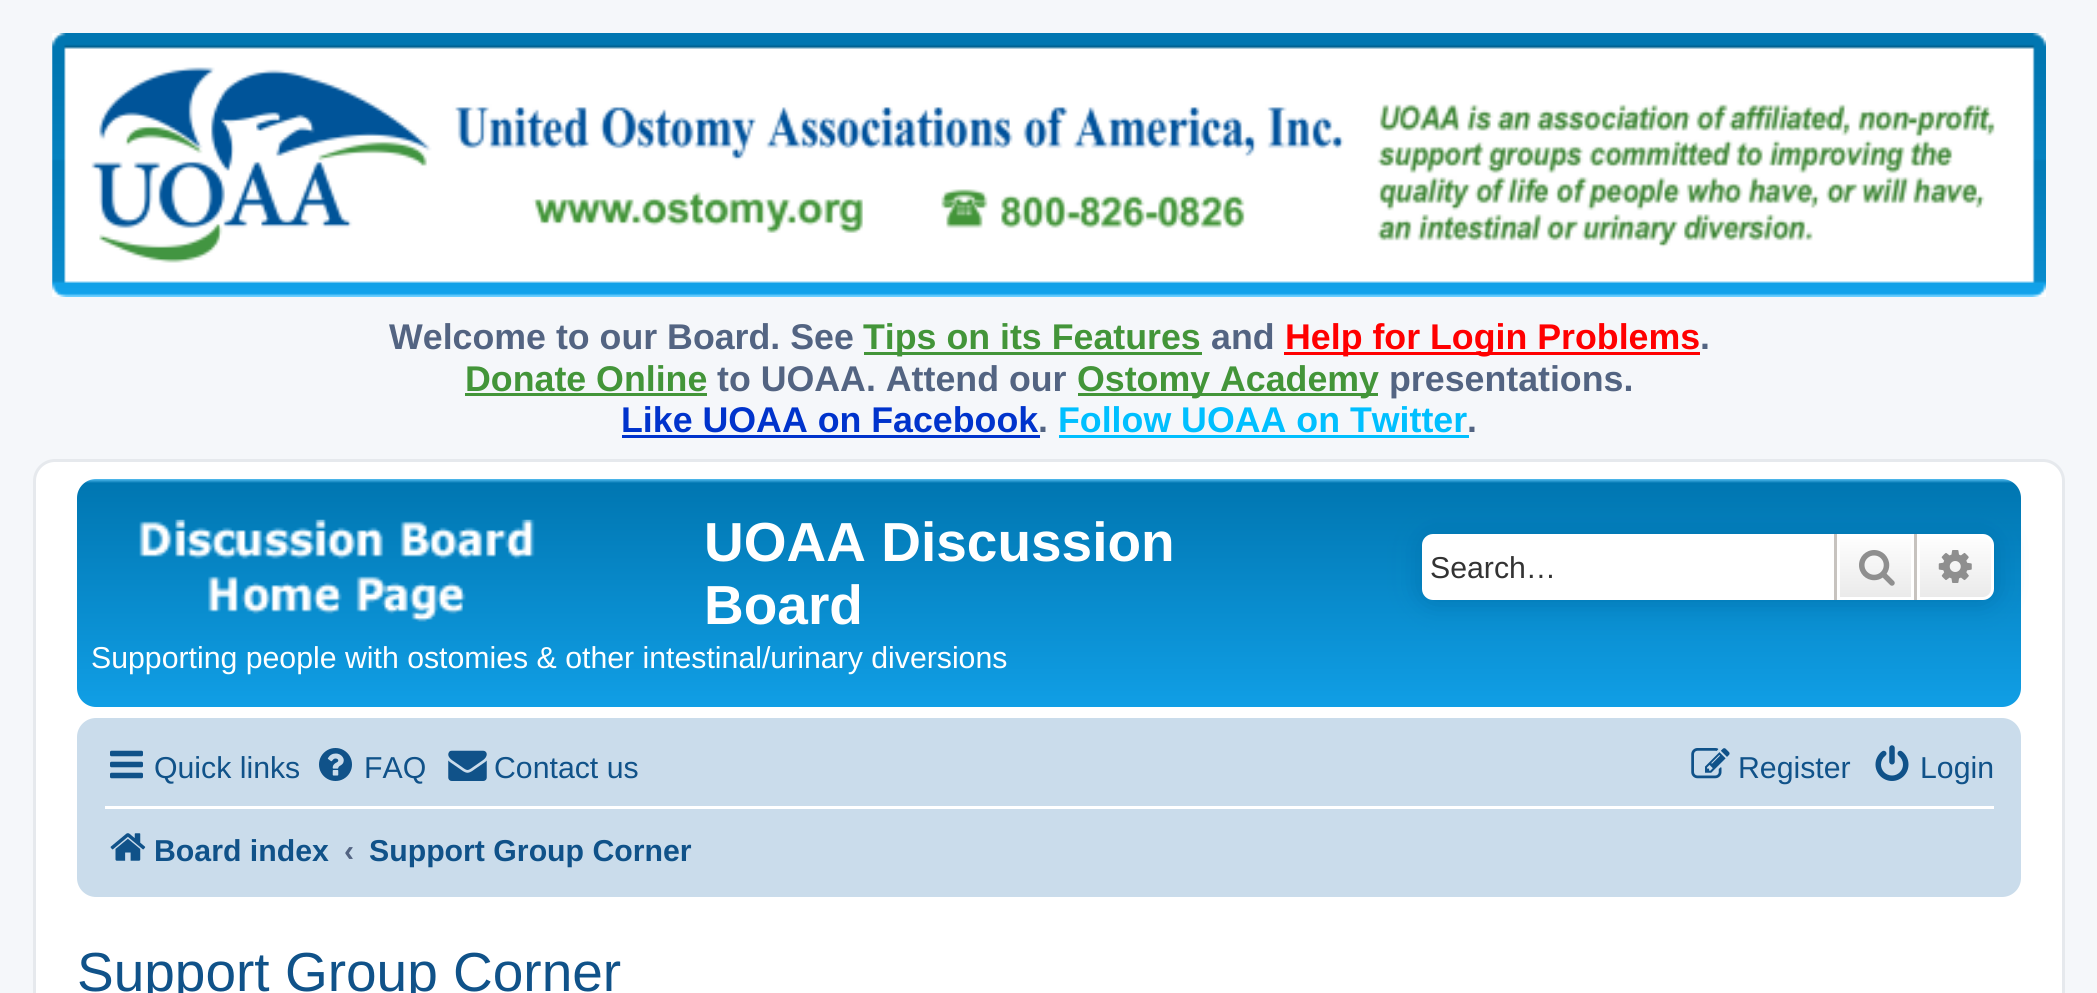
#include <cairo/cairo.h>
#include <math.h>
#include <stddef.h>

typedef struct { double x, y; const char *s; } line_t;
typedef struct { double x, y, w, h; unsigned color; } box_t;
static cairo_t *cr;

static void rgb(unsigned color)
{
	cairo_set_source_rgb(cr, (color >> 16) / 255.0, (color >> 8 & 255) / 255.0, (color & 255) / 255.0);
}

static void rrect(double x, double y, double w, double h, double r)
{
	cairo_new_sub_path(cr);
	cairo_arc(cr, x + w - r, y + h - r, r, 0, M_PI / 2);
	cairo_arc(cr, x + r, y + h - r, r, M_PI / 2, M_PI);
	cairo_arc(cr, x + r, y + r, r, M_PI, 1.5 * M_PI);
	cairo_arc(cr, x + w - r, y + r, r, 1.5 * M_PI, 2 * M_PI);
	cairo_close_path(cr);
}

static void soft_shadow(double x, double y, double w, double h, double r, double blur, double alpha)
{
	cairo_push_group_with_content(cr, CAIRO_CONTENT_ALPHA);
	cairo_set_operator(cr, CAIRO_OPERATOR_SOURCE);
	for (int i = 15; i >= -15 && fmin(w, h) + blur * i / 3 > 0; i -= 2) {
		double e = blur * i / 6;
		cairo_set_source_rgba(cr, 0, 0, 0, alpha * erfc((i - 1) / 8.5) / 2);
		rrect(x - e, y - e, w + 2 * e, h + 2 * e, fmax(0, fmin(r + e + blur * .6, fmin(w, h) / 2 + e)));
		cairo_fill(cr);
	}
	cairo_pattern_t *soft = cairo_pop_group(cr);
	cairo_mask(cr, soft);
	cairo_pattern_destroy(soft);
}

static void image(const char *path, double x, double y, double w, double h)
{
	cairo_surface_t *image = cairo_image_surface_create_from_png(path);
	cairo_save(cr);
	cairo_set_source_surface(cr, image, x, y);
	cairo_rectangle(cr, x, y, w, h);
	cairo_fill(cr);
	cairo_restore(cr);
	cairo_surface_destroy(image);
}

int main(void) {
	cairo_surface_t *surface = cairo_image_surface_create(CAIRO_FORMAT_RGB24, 2097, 993);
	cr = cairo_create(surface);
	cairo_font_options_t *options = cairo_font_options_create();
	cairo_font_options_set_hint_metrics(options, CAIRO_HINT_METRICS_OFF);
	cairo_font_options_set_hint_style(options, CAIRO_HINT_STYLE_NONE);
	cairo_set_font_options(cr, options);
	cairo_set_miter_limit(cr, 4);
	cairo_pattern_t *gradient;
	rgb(0xf5f7fa);
	cairo_paint(cr);
	image("img/1.png", 52, 33, 1994, 264);
	{
		static const box_t items[] = {
			{864, 352, 338, 3, 0x439539},
			{1284, 352, 416, 3, 0xff0000},
			{465, 393, 242, 3, 0x439539},
			{1078, 393, 300, 3, 0x439539},
			{622, 435, 418, 3, 0x0033cc},
			{1059, 435, 410, 3, 0x00bfff},
		};
		for (size_t i = 0; i < sizeof items / sizeof *items; i++) {
			rgb(items[i].color);
			cairo_rectangle(cr, items[i].x, items[i].y, items[i].w, items[i].h);
			cairo_fill(cr);
		}
	}
	rgb(0xffffff);
	rrect(34.5, 460.5, 2029, 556, 20.5);
	cairo_fill_preserve(cr);
	rgb(0xe6e9ed);
	cairo_set_line_width(cr, 3);
	cairo_stroke(cr);
	gradient = cairo_pattern_create_linear(1049, 478, 1049, 732);
	cairo_pattern_add_color_stop_rgba(gradient, 0, 0.416, 0.808, 1, 1);
	cairo_pattern_add_color_stop_rgba(gradient, 0.02, 0, 0.463, 0.694, 1);
	cairo_pattern_add_color_stop_rgba(gradient, 1, 0.071, 0.639, 0.922, 1);
	cairo_set_source(cr, gradient);
	cairo_pattern_destroy(gradient);
	rrect(77, 479, 1944, 228, 19);
	cairo_fill(cr);
	image("img/2.png", 139, 519, 396, 103);
	rgb(0x0075b0);
	soft_shadow(1422, 534, 572, 66, 11, 14, 1);
	rgb(0xffffff);
	cairo_new_path(cr);
	cairo_move_to(cr, 1433, 534);
	cairo_line_to(cr, 1834, 534);
	cairo_line_to(cr, 1834, 600);
	cairo_line_to(cr, 1433, 600);
	cairo_curve_to(cr, 1427, 600, 1422, 595, 1422, 589);
	cairo_line_to(cr, 1422, 545);
	cairo_curve_to(cr, 1422, 539, 1427, 534, 1433, 534);
	cairo_close_path(cr);
	cairo_fill(cr);
	gradient = cairo_pattern_create_linear(1876, 534, 1876, 600);
	cairo_pattern_add_color_stop_rgba(gradient, 0, 1, 1, 1, 1);
	cairo_pattern_add_color_stop_rgba(gradient, 1, 0.914, 0.914, 0.914, 1);
	cairo_set_source(cr, gradient);
	cairo_pattern_destroy(gradient);
	cairo_rectangle(cr, 1840, 537, 71, 60);
	cairo_fill(cr);
	cairo_rectangle(cr, 1838.5, 535.5, 74, 63);
	rgb(0xffffff);
	cairo_stroke(cr);
	rgb(0xc7c3bf);
	cairo_rectangle(cr, 1914, 534, 3, 66);
	cairo_fill(cr);
	cairo_rectangle(cr, 1834, 534, 3, 66);
	cairo_fill(cr);
	image("img/3.png", 1859, 550, 36, 36);
	gradient = cairo_pattern_create_linear(1955, 534, 1955, 600);
	cairo_pattern_add_color_stop_rgba(gradient, 0, 1, 1, 1, 1);
	cairo_pattern_add_color_stop_rgba(gradient, 1, 0.914, 0.914, 0.914, 1);
	cairo_set_source(cr, gradient);
	cairo_pattern_destroy(gradient);
	cairo_new_path(cr);
	cairo_move_to(cr, 1918.5, 535.5);
	cairo_line_to(cr, 1983, 535.5);
	cairo_curve_to(cr, 1988, 535.5, 1992.5, 540, 1992.5, 545);
	cairo_line_to(cr, 1992.5, 589);
	cairo_curve_to(cr, 1992.5, 594, 1988, 598.5, 1983, 598.5);
	cairo_line_to(cr, 1918.5, 598.5);
	cairo_close_path(cr);
	cairo_fill_preserve(cr);
	rgb(0xffffff);
	cairo_stroke(cr);
	image("img/4.png", 1938, 550, 34, 33);
	rgb(0xcadceb);
	rrect(77, 718, 1944, 179, 19);
	cairo_fill(cr);
	image("img/5.png", 110, 750, 33, 29);
	image("img/6.png", 319, 748, 33, 33);
	image("img/7.png", 448, 750, 39, 31);
	image("img/8.png", 1691, 748, 39, 31);
	image("img/9.png", 1875, 745, 34, 36);
	rgb(0xffffff);
	cairo_rectangle(cr, 105, 806, 1889, 3);
	cairo_fill(cr);
	image("img/10.png", 110, 833, 36, 28);
	cairo_select_font_face(cr, "Liberation Sans", CAIRO_FONT_SLANT_NORMAL, CAIRO_FONT_WEIGHT_BOLD);
	cairo_set_font_size(cr, 35.75);
	rgb(0x536482);
	cairo_move_to(cr, 389, 349);
	cairo_show_text(cr, "Welcome to our Board. See");
	rgb(0x439539);
	cairo_move_to(cr, 863, 349);
	cairo_show_text(cr, "Tips on its Features");
	rgb(0x536482);
	cairo_move_to(cr, 1211, 349);
	cairo_show_text(cr, "and");
	rgb(0xff0000);
	cairo_move_to(cr, 1285, 349);
	cairo_show_text(cr, "Help for Login Problems");
	rgb(0x536482);
	cairo_move_to(cr, 1700, 349);
	cairo_show_text(cr, ".");
	rgb(0x439539);
	cairo_move_to(cr, 465, 391);
	cairo_show_text(cr, "Donate Online");
	rgb(0x536482);
	cairo_move_to(cr, 717, 391);
	cairo_show_text(cr, "to UOAA. Attend our");
	rgb(0x439539);
	cairo_move_to(cr, 1077, 391);
	cairo_show_text(cr, "Ostomy Academy");
	rgb(0x536482);
	cairo_move_to(cr, 1389, 391);
	cairo_show_text(cr, "presentations.");
	rgb(0x0033cc);
	cairo_move_to(cr, 621, 432);
	cairo_show_text(cr, "Like UOAA on Facebook");
	rgb(0x536482);
	cairo_move_to(cr, 1038, 432);
	cairo_show_text(cr, ".");
	rgb(0x00bfff);
	cairo_move_to(cr, 1058, 432);
	cairo_show_text(cr, "Follow UOAA on Twitter");
	rgb(0x536482);
	cairo_move_to(cr, 1467, 432);
	cairo_show_text(cr, ".");
	cairo_set_font_size(cr, 55);
	rgb(0xffffff);
	cairo_move_to(cr, 704, 561);
	cairo_show_text(cr, "UOAA Discussion");
	cairo_move_to(cr, 704, 624);
	cairo_show_text(cr, "Board");
	cairo_select_font_face(cr, "Liberation Sans", CAIRO_FONT_SLANT_NORMAL, CAIRO_FONT_WEIGHT_NORMAL);
	cairo_set_font_size(cr, 30.25);
	cairo_move_to(cr, 91, 668);
	cairo_show_text(cr, "Supporting people with ostomies & other intestinal/urinary diversions");
	rgb(0x333333);
	cairo_move_to(cr, 1430, 578);
	cairo_show_text(cr, "Search…");
	rgb(0x105289);
	{
		static const line_t items[] = {
			{154, 778, "Quick links"},
			{364, 778, "FAQ"},
			{494, 778, "Contact us"},
			{1738, 778, "Register"},
			{1920, 778, "Login"},
		};
		for (size_t i = 0; i < sizeof items / sizeof *items; i++) {
			cairo_move_to(cr, items[i].x, items[i].y);
			cairo_show_text(cr, items[i].s);
		}
	}
	cairo_select_font_face(cr, "Liberation Sans", CAIRO_FONT_SLANT_NORMAL, CAIRO_FONT_WEIGHT_BOLD);
	cairo_move_to(cr, 154, 861);
	cairo_show_text(cr, "Board index");
	rgb(0x536482);
	cairo_move_to(cr, 344, 861);
	cairo_show_text(cr, "‹");
	rgb(0x105289);
	cairo_move_to(cr, 369, 861);
	cairo_show_text(cr, "Support Group Corner");
	cairo_select_font_face(cr, "Liberation Sans", CAIRO_FONT_SLANT_NORMAL, CAIRO_FONT_WEIGHT_NORMAL);
	cairo_set_font_size(cr, 55);
	cairo_move_to(cr, 77, 991);
	cairo_show_text(cr, "Support Group Corner");
	cairo_surface_write_to_png(surface, "page.png");
	cairo_font_options_destroy(options);
	cairo_destroy(cr);
	cairo_surface_destroy(surface);
	return 0;
}
